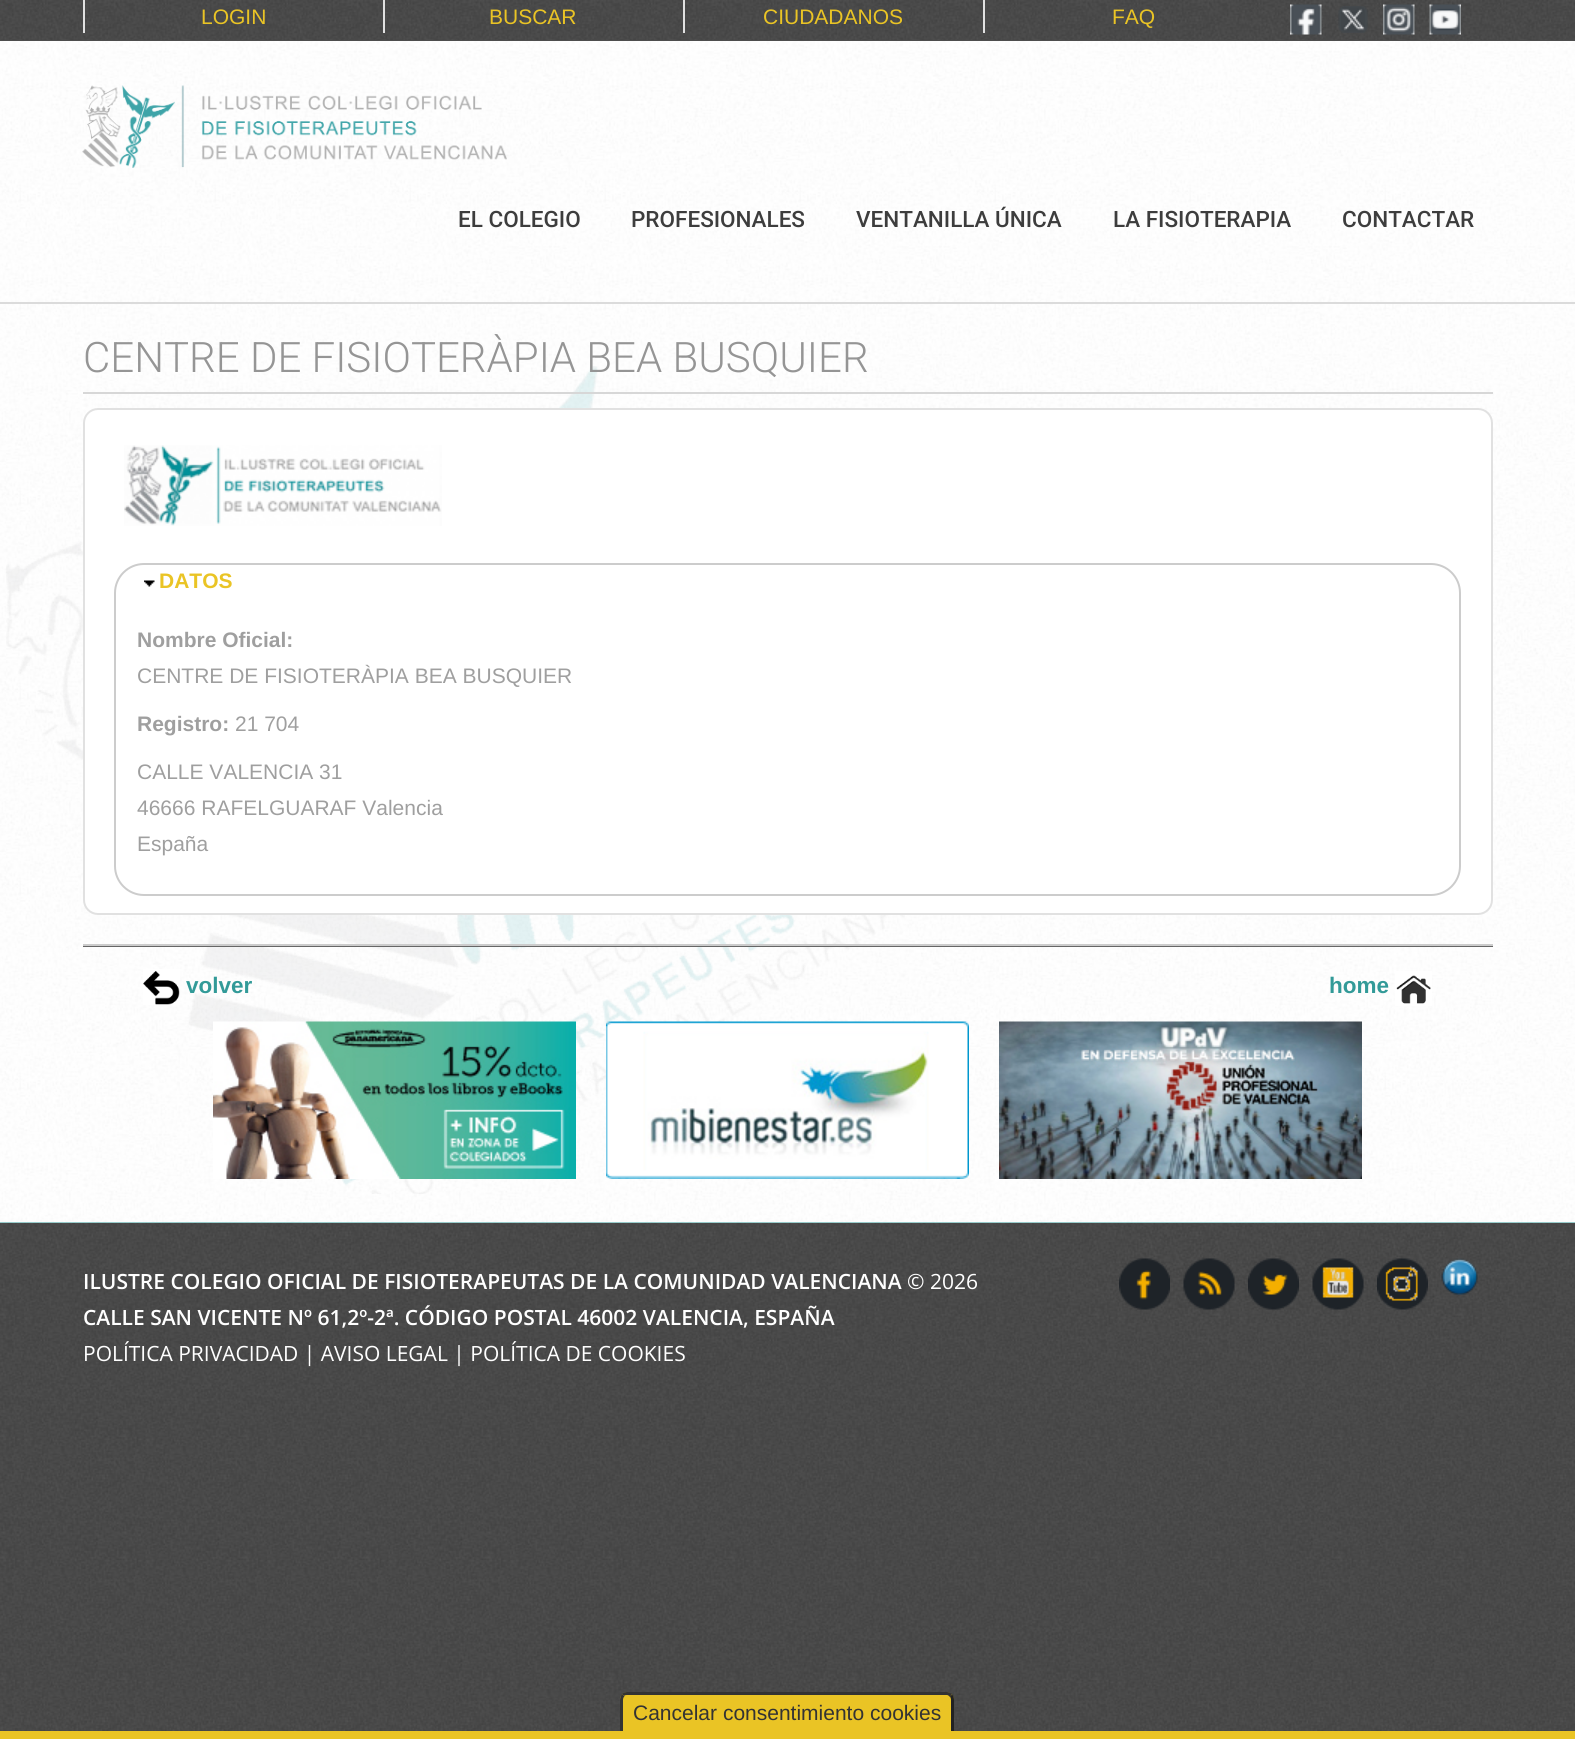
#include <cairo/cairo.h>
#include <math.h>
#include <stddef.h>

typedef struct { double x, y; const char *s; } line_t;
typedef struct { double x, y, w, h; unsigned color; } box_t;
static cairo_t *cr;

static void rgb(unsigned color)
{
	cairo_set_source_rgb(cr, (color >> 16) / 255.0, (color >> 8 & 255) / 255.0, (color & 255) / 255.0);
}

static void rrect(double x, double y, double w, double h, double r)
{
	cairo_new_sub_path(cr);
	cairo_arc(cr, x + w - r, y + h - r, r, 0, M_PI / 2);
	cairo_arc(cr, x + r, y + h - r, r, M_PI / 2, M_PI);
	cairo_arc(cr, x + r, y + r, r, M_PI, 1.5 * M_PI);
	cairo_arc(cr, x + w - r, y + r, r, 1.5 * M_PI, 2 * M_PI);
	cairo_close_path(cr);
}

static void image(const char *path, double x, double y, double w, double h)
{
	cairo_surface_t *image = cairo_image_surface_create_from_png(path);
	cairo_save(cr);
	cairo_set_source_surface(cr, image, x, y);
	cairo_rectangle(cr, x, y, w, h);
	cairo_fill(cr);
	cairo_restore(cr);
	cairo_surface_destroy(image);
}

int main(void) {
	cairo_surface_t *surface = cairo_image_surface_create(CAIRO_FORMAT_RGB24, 1575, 1739);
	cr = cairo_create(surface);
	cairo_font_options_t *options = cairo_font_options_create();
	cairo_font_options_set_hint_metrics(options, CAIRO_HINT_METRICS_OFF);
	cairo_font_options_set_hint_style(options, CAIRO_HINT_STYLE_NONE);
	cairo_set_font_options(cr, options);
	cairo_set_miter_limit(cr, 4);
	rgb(0xffffff);
	cairo_paint(cr);
	image("img/1.png", 0, 1223, 1575, 508);
	image("img/2.png", 0, 41, 1575, 261);
	rgb(0x4d4d4d);
	cairo_rectangle(cr, 0, 40, 1575, 1);
	cairo_fill(cr);
	image("img/3.png", 0, 0, 1575, 40);
	{
		static const box_t items[] = {
			{83, 0, 2, 33, 0xe1e1e1},
			{383, 0, 2, 33, 0xe1e1e1},
			{683, 0, 2, 33, 0xe1e1e1},
			{983, 0, 2, 33, 0xe1e1e1},
		};
		for (size_t i = 0; i < sizeof items / sizeof *items; i++) {
			rgb(items[i].color);
			cairo_rectangle(cr, items[i].x, items[i].y, items[i].w, items[i].h);
			cairo_fill(cr);
		}
	}
	image("img/4.png", 1290, 4, 32, 31);
	image("img/5.png", 1338, 6, 30, 27);
	image("img/6.png", 1383, 4, 32, 31);
	image("img/7.png", 1429, 4, 32, 31);
	rgb(0xdbdbdb);
	cairo_rectangle(cr, 0, 302, 1575, 2);
	cairo_fill(cr);
	image("img/8.png", 82, 85, 425, 83);
	rgb(0x329a98);
	cairo_rectangle(cr, 0, 1222, 1575, 1);
	cairo_fill(cr);
	image("img/9.png", 0, 304, 1575, 919);
	image("img/10.png", 6, 366, 899, 828);
	rgb(0xd7d7d7);
	cairo_rectangle(cr, 83, 392, 1410, 2);
	cairo_fill(cr);
	rgb(0xffffff);
	rrect(84, 409, 1408, 505, 14);
	cairo_fill_preserve(cr);
	rgb(0xe1e1e1);
	cairo_stroke(cr);
	image("img/11.png", 124, 445, 318, 81);
	rrect(115, 564, 1345, 331, 29);
	rgb(0xcccccc);
	cairo_stroke(cr);
	image("img/12.png", 144, 580, 11, 7);
	rgb(0x666666);
	cairo_rectangle(cr, 83, 946, 1410, 1);
	cairo_fill(cr);
	rgb(0xcccccc);
	cairo_rectangle(cr, 83, 944, 1410, 2);
	cairo_fill(cr);
	image("img/13.png", 143, 969, 37, 36);
	image("img/14.png", 1395, 971, 37, 35);
	image("img/15.png", 213, 1021, 363, 158);
	image("img/16.png", 606, 1021, 363, 158);
	image("img/17.png", 999, 1021, 363, 158);
	image("img/18.png", 1119, 1258, 51, 52);
	image("img/19.png", 1183, 1258, 52, 52);
	image("img/20.png", 1248, 1258, 51, 52);
	image("img/21.png", 1312, 1258, 52, 52);
	image("img/22.png", 1377, 1258, 51, 52);
	image("img/23.png", 1441, 1258, 37, 37);
	rgb(0xeac425);
	cairo_rectangle(cr, 0, 1731, 1575, 8);
	cairo_fill(cr);
	cairo_new_path(cr);
	cairo_move_to(cr, 628, 1692);
	cairo_line_to(cr, 946, 1692);
	cairo_curve_to(cr, 950.5, 1692, 954, 1695.5, 954, 1700);
	cairo_line_to(cr, 954, 1731);
	cairo_line_to(cr, 620, 1731);
	cairo_line_to(cr, 620, 1700);
	cairo_curve_to(cr, 620, 1695.5, 623.5, 1692, 628, 1692);
	cairo_close_path(cr);
	cairo_fill(cr);
	rgb(0x333333);
	cairo_new_path(cr);
	cairo_move_to(cr, 627, 1692);
	cairo_line_to(cr, 947, 1692);
	cairo_curve_to(cr, 949, 1692, 951, 1693, 952, 1694);
	cairo_line_to(cr, 950, 1697);
	cairo_curve_to(cr, 949, 1696, 948, 1695, 947, 1695);
	cairo_line_to(cr, 627, 1695);
	cairo_curve_to(cr, 626, 1695, 625, 1695, 624, 1696);
	cairo_line_to(cr, 622, 1694);
	cairo_curve_to(cr, 623, 1693, 625, 1692, 627, 1692);
	cairo_close_path(cr);
	cairo_fill(cr);
	rgb(0x222222);
	cairo_new_path(cr);
	cairo_move_to(cr, 951, 1731);
	cairo_line_to(cr, 954, 1731);
	cairo_line_to(cr, 954, 1700);
	cairo_curve_to(cr, 954, 1697.5, 953.5, 1695.5, 952, 1694.5);
	cairo_line_to(cr, 950, 1696.5);
	cairo_curve_to(cr, 950.5, 1697.5, 951, 1698.5, 951, 1700);
	cairo_close_path(cr);
	cairo_fill(cr);
	rgb(0x333333);
	cairo_new_path(cr);
	cairo_move_to(cr, 620, 1731);
	cairo_line_to(cr, 623, 1731);
	cairo_line_to(cr, 623, 1700);
	cairo_curve_to(cr, 623, 1698.5, 623.5, 1697, 624.5, 1696.5);
	cairo_line_to(cr, 622, 1694);
	cairo_curve_to(cr, 621, 1695.5, 620, 1697.5, 620, 1700);
	cairo_close_path(cr);
	cairo_fill(cr);
	cairo_select_font_face(cr, "Liberation Sans", CAIRO_FONT_SLANT_NORMAL, CAIRO_FONT_WEIGHT_NORMAL);
	cairo_set_font_size(cr, 21);
	rgb(0xeac425);
	{
		static const line_t items[] = {
			{201, 24, "LOGIN"},
			{489, 24, "BUSCAR"},
			{763, 24, "CIUDADANOS"},
			{1112, 24, "FAQ"},
		};
		for (size_t i = 0; i < sizeof items / sizeof *items; i++) {
			cairo_move_to(cr, items[i].x, items[i].y);
			cairo_show_text(cr, items[i].s);
		}
	}
	cairo_select_font_face(cr, "Roboto Medium", CAIRO_FONT_SLANT_NORMAL, CAIRO_FONT_WEIGHT_NORMAL);
	cairo_set_font_size(cr, 22.5);
	rgb(0x3d3d3d);
	{
		static const line_t items[] = {
			{458, 227, "EL COLEGIO"},
			{631, 227, "PROFESIONALES"},
			{856, 227, "VENTANILLA ÚNICA"},
			{1113, 227, "LA FISIOTERAPIA"},
			{1342, 227, "CONTACTAR"},
		};
		for (size_t i = 0; i < sizeof items / sizeof *items; i++) {
			cairo_move_to(cr, items[i].x, items[i].y);
			cairo_show_text(cr, items[i].s);
		}
	}
	cairo_select_font_face(cr, "Roboto Light", CAIRO_FONT_SLANT_NORMAL, CAIRO_FONT_WEIGHT_NORMAL);
	cairo_set_font_size(cr, 42);
	rgb(0x959595);
	cairo_move_to(cr, 83, 372);
	cairo_show_text(cr, "CENTRE DE FISIOTERÀPIA BEA BUSQUIER");
	cairo_select_font_face(cr, "Liberation Sans", CAIRO_FONT_SLANT_NORMAL, CAIRO_FONT_WEIGHT_BOLD);
	cairo_set_font_size(cr, 21);
	rgb(0xeac425);
	cairo_move_to(cr, 159, 588);
	cairo_show_text(cr, "DATOS");
	rgb(0x9f9f9f);
	cairo_move_to(cr, 137, 647);
	cairo_show_text(cr, "Nombre Oficial:");
	cairo_select_font_face(cr, "Liberation Sans", CAIRO_FONT_SLANT_NORMAL, CAIRO_FONT_WEIGHT_NORMAL);
	cairo_move_to(cr, 137, 683);
	cairo_show_text(cr, "CENTRE DE FISIOTERÀPIA BEA BUSQUIER");
	cairo_select_font_face(cr, "Liberation Sans", CAIRO_FONT_SLANT_NORMAL, CAIRO_FONT_WEIGHT_BOLD);
	cairo_move_to(cr, 137, 731);
	cairo_show_text(cr, "Registro:");
	cairo_select_font_face(cr, "Liberation Sans", CAIRO_FONT_SLANT_NORMAL, CAIRO_FONT_WEIGHT_NORMAL);
	{
		static const line_t items[] = {
			{235, 731, "21 704"},
			{137, 779, "CALLE VALENCIA 31"},
			{137, 815, "46666 RAFELGUARAF Valencia"},
			{137, 851, "España"},
		};
		for (size_t i = 0; i < sizeof items / sizeof *items; i++) {
			cairo_move_to(cr, items[i].x, items[i].y);
			cairo_show_text(cr, items[i].s);
		}
	}
	cairo_select_font_face(cr, "Liberation Sans", CAIRO_FONT_SLANT_NORMAL, CAIRO_FONT_WEIGHT_BOLD);
	cairo_set_font_size(cr, 22.5);
	rgb(0x329a98);
	cairo_move_to(cr, 186, 993);
	cairo_show_text(cr, "volver");
	cairo_move_to(cr, 1329, 993);
	cairo_show_text(cr, "home");
	cairo_select_font_face(cr, "Open Sans SemiBold", CAIRO_FONT_SLANT_NORMAL, CAIRO_FONT_WEIGHT_NORMAL);
	cairo_set_font_size(cr, 21);
	rgb(0xffffff);
	cairo_move_to(cr, 83, 1289);
	cairo_show_text(cr, "ILUSTRE COLEGIO OFICIAL DE FISIOTERAPEUTAS DE LA COMUNIDAD VALENCIANA");
	cairo_select_font_face(cr, "Open Sans", CAIRO_FONT_SLANT_NORMAL, CAIRO_FONT_WEIGHT_NORMAL);
	cairo_move_to(cr, 907, 1289);
	cairo_show_text(cr, "© 2026");
	cairo_select_font_face(cr, "Open Sans SemiBold", CAIRO_FONT_SLANT_NORMAL, CAIRO_FONT_WEIGHT_NORMAL);
	cairo_move_to(cr, 83, 1325);
	cairo_show_text(cr, "CALLE SAN VICENTE Nº 61,2º-2ª. CÓDIGO POSTAL 46002 VALENCIA, ESPAÑA");
	cairo_select_font_face(cr, "Open Sans", CAIRO_FONT_SLANT_NORMAL, CAIRO_FONT_WEIGHT_NORMAL);
	cairo_move_to(cr, 83, 1361);
	cairo_show_text(cr, "POLÍTICA PRIVACIDAD | AVISO LEGAL | POLÍTICA DE COOKIES");
	cairo_select_font_face(cr, "Liberation Sans", CAIRO_FONT_SLANT_NORMAL, CAIRO_FONT_WEIGHT_NORMAL);
	rgb(0x333333);
	cairo_move_to(cr, 633, 1720);
	cairo_show_text(cr, "Cancelar consentimiento cookies");
	cairo_surface_write_to_png(surface, "page.png");
	cairo_font_options_destroy(options);
	cairo_destroy(cr);
	cairo_surface_destroy(surface);
	return 0;
}
